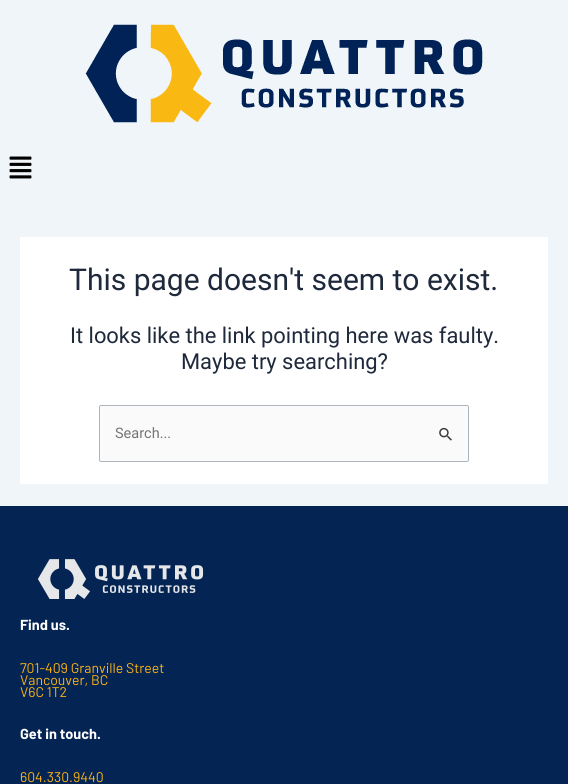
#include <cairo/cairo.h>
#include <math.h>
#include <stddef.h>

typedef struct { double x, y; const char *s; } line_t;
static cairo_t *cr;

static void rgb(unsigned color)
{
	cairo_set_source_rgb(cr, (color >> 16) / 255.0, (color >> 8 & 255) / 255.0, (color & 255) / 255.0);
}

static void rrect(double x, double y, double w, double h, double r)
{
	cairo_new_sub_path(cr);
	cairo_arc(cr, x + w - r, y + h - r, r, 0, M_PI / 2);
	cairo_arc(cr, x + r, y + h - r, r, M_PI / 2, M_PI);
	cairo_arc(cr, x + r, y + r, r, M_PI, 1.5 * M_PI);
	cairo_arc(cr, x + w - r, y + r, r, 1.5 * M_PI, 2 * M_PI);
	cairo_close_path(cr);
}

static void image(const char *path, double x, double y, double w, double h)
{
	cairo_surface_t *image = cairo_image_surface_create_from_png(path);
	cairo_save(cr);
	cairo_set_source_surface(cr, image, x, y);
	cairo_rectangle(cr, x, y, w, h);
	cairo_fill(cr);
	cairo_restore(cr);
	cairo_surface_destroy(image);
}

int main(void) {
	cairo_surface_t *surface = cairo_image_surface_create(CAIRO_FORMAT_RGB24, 568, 784);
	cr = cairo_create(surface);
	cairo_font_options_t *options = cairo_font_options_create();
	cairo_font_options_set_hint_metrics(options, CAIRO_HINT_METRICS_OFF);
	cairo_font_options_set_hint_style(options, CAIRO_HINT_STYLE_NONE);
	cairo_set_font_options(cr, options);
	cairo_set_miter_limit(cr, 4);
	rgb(0xf0f5fa);
	cairo_paint(cr);
	image("img/1.png", 85, 24, 398, 99);
	image("img/2.png", 9, 156, 23, 23);
	rgb(0xffffff);
	cairo_rectangle(cr, 20, 237, 528, 247);
	cairo_fill(cr);
	rgb(0xfafafa);
	rrect(99.5, 405.5, 369, 56, 1.5);
	cairo_fill_preserve(cr);
	rgb(0xadb6be);
	cairo_set_line_width(cr, 1);
	cairo_stroke(cr);
	image("img/3.png", 439, 427, 13, 14);
	rgb(0x042454);
	cairo_rectangle(cr, 0, 506, 568, 278);
	cairo_fill(cr);
	image("img/4.png", 38, 559, 166, 40);
	cairo_select_font_face(cr, "Roboto", CAIRO_FONT_SLANT_NORMAL, CAIRO_FONT_WEIGHT_NORMAL);
	cairo_set_font_size(cr, 30);
	rgb(0x1e293b);
	cairo_move_to(cr, 69, 290);
	cairo_show_text(cr, "This page doesn't seem to exist.");
	cairo_set_font_size(cr, 21.9);
	cairo_move_to(cr, 70, 343);
	cairo_show_text(cr, "It looks like the link pointing here was faulty.");
	cairo_move_to(cr, 181, 369);
	cairo_show_text(cr, "Maybe try searching?");
	cairo_set_font_size(cr, 14.5);
	rgb(0x757575);
	cairo_move_to(cr, 115, 438);
	cairo_show_text(cr, "Search...");
	cairo_select_font_face(cr, "Barlow", CAIRO_FONT_SLANT_NORMAL, CAIRO_FONT_WEIGHT_BOLD);
	rgb(0xffffff);
	cairo_move_to(cr, 20, 630);
	cairo_show_text(cr, "Find us.");
	cairo_select_font_face(cr, "Barlow", CAIRO_FONT_SLANT_NORMAL, CAIRO_FONT_WEIGHT_NORMAL);
	cairo_set_font_size(cr, 14);
	rgb(0xfcb414);
	{
		static const line_t items[] = {
			{20, 673, "701-409 Granville Street"},
			{20, 685, "Vancouver, BC"},
			{20, 697, "V6C 1T2"},
		};
		for (size_t i = 0; i < sizeof items / sizeof *items; i++) {
			cairo_move_to(cr, items[i].x, items[i].y);
			cairo_show_text(cr, items[i].s);
		}
	}
	cairo_select_font_face(cr, "Barlow", CAIRO_FONT_SLANT_NORMAL, CAIRO_FONT_WEIGHT_BOLD);
	cairo_set_font_size(cr, 14.5);
	rgb(0xffffff);
	cairo_move_to(cr, 20, 739);
	cairo_show_text(cr, "Get in touch.");
	cairo_select_font_face(cr, "Barlow", CAIRO_FONT_SLANT_NORMAL, CAIRO_FONT_WEIGHT_NORMAL);
	cairo_set_font_size(cr, 14);
	rgb(0xfcb414);
	cairo_move_to(cr, 20, 782);
	cairo_show_text(cr, "604.330.9440");
	cairo_surface_write_to_png(surface, "page.png");
	cairo_font_options_destroy(options);
	cairo_destroy(cr);
	cairo_surface_destroy(surface);
	return 0;
}
